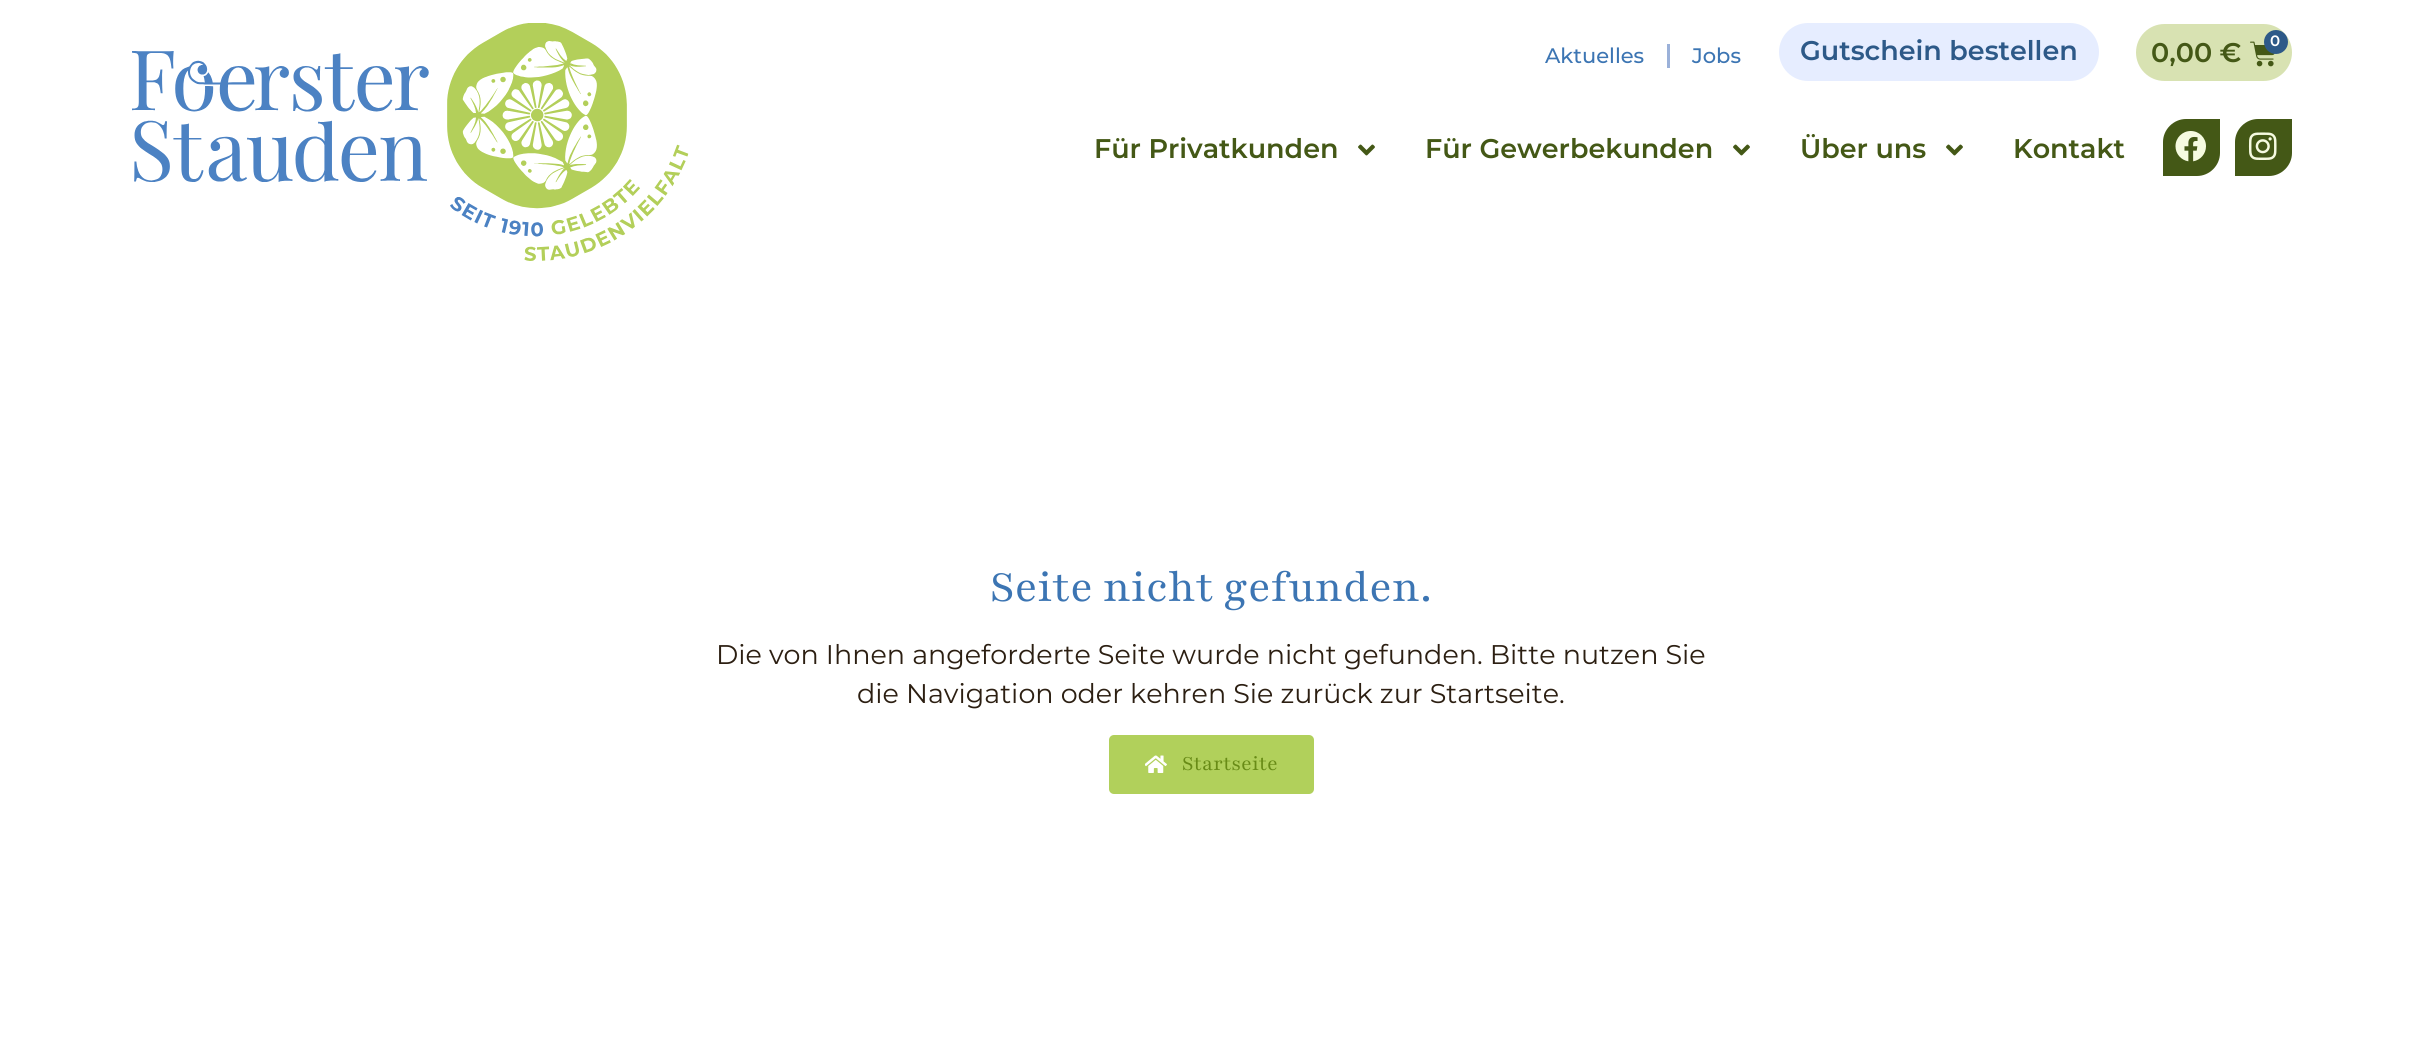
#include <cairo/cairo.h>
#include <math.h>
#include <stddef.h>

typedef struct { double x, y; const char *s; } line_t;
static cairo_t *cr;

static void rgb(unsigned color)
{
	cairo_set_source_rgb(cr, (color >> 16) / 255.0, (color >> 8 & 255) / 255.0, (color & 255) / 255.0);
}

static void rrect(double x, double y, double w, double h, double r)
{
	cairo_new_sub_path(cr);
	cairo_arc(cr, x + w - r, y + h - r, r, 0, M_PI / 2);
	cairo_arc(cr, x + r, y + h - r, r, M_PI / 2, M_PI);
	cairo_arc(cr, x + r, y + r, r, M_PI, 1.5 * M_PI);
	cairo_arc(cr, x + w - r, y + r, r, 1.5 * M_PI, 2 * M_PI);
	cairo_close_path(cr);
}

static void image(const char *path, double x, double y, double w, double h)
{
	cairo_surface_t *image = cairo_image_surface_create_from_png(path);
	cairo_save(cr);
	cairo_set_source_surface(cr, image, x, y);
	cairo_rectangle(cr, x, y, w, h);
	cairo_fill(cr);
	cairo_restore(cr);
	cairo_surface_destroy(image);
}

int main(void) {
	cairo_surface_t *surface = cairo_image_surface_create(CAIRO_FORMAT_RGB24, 2422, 1043);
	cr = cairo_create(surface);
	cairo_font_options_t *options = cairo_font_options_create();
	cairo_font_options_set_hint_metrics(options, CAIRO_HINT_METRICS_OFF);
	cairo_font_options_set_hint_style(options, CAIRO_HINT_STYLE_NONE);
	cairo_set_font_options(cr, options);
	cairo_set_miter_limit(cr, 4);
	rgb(0xffffff);
	cairo_paint(cr);
	image("img/1.png", 132, 23, 557, 238);
	rgb(0x9bb1d9);
	cairo_rectangle(cr, 1667, 44, 3, 24);
	cairo_fill(cr);
	rgb(0xe6edff);
	rrect(1779, 23, 320, 58, 29);
	cairo_fill(cr);
	rgb(0xd8e2b2);
	rrect(2136, 24, 156, 57, 28.5);
	cairo_fill(cr);
	image("img/2.png", 2250, 41, 25, 26);
	rgb(0x2d5988);
	cairo_arc(cr, 2276, 42, 12, 0, 2 * M_PI);
	cairo_fill(cr);
	image("img/3.png", 1358, 144, 17, 12);
	image("img/3.png", 1733, 144, 17, 12);
	image("img/3.png", 1946, 144, 17, 12);
	rgb(0x445816);
	cairo_new_path(cr);
	cairo_move_to(cr, 2186, 119);
	cairo_line_to(cr, 2220, 119);
	cairo_line_to(cr, 2220, 153);
	cairo_curve_to(cr, 2220, 165.5, 2209.5, 176, 2197, 176);
	cairo_line_to(cr, 2163, 176);
	cairo_line_to(cr, 2163, 142);
	cairo_curve_to(cr, 2163, 129.5, 2173.5, 119, 2186, 119);
	cairo_close_path(cr);
	cairo_fill(cr);
	image("img/4.png", 2175, 131, 31, 31);
	cairo_new_path(cr);
	cairo_move_to(cr, 2258, 119);
	cairo_line_to(cr, 2292, 119);
	cairo_line_to(cr, 2292, 153);
	cairo_curve_to(cr, 2292, 165.5, 2281.5, 176, 2269, 176);
	cairo_line_to(cr, 2235, 176);
	cairo_line_to(cr, 2235, 142);
	cairo_curve_to(cr, 2235, 129.5, 2245.5, 119, 2258, 119);
	cairo_close_path(cr);
	cairo_fill(cr);
	image("img/5.png", 2248, 132, 29, 28);
	rgb(0xb1d05b);
	rrect(1109, 735, 205, 59, 5);
	cairo_fill(cr);
	image("img/6.png", 1145, 755, 22, 18);
	cairo_select_font_face(cr, "Montserrat Medium", CAIRO_FONT_SLANT_NORMAL, CAIRO_FONT_WEIGHT_NORMAL);
	cairo_set_font_size(cr, 21);
	rgb(0x3c75b3);
	cairo_move_to(cr, 1545, 63);
	cairo_show_text(cr, "Aktuelles");
	cairo_move_to(cr, 1692, 63);
	cairo_show_text(cr, "Jobs");
	cairo_select_font_face(cr, "Montserrat SemiBold", CAIRO_FONT_SLANT_NORMAL, CAIRO_FONT_WEIGHT_NORMAL);
	cairo_set_font_size(cr, 27);
	rgb(0x2d5988);
	cairo_move_to(cr, 1800, 60);
	cairo_show_text(cr, "Gutschein bestellen");
	rgb(0x445816);
	cairo_move_to(cr, 2151, 62);
	cairo_show_text(cr, "0,00 €");
	cairo_set_font_size(cr, 15);
	rgb(0xffffff);
	cairo_move_to(cr, 2270, 46);
	cairo_show_text(cr, "0");
	cairo_set_font_size(cr, 27);
	rgb(0x445816);
	{
		static const line_t items[] = {
			{1094, 158, "Für Privatkunden"},
			{1425, 158, "Für Gewerbekunden"},
			{1800, 158, "Über uns"},
			{2013, 158, "Kontakt"},
		};
		for (size_t i = 0; i < sizeof items / sizeof *items; i++) {
			cairo_move_to(cr, items[i].x, items[i].y);
			cairo_show_text(cr, items[i].s);
		}
	}
	cairo_select_font_face(cr, "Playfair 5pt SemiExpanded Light", CAIRO_FONT_SLANT_NORMAL, CAIRO_FONT_WEIGHT_NORMAL);
	cairo_set_font_size(cr, 48);
	rgb(0x3c75b3);
	cairo_move_to(cr, 990, 601);
	cairo_show_text(cr, "Seite nicht gefunden.");
	cairo_select_font_face(cr, "Montserrat", CAIRO_FONT_SLANT_NORMAL, CAIRO_FONT_WEIGHT_NORMAL);
	cairo_set_font_size(cr, 27);
	rgb(0x2c1f12);
	cairo_move_to(cr, 716, 664);
	cairo_show_text(cr, "Die von Ihnen angeforderte Seite wurde nicht gefunden. Bitte nutzen Sie");
	cairo_move_to(cr, 857, 703);
	cairo_show_text(cr, "die Navigation oder kehren Sie zurück zur Startseite.");
	cairo_select_font_face(cr, "Playfair 5pt SemiExpanded Light", CAIRO_FONT_SLANT_NORMAL, CAIRO_FONT_WEIGHT_NORMAL);
	cairo_set_font_size(cr, 22.5);
	rgb(0x688b16);
	cairo_move_to(cr, 1182, 770);
	cairo_show_text(cr, "Startseite");
	cairo_surface_write_to_png(surface, "page.png");
	cairo_font_options_destroy(options);
	cairo_destroy(cr);
	cairo_surface_destroy(surface);
	return 0;
}
